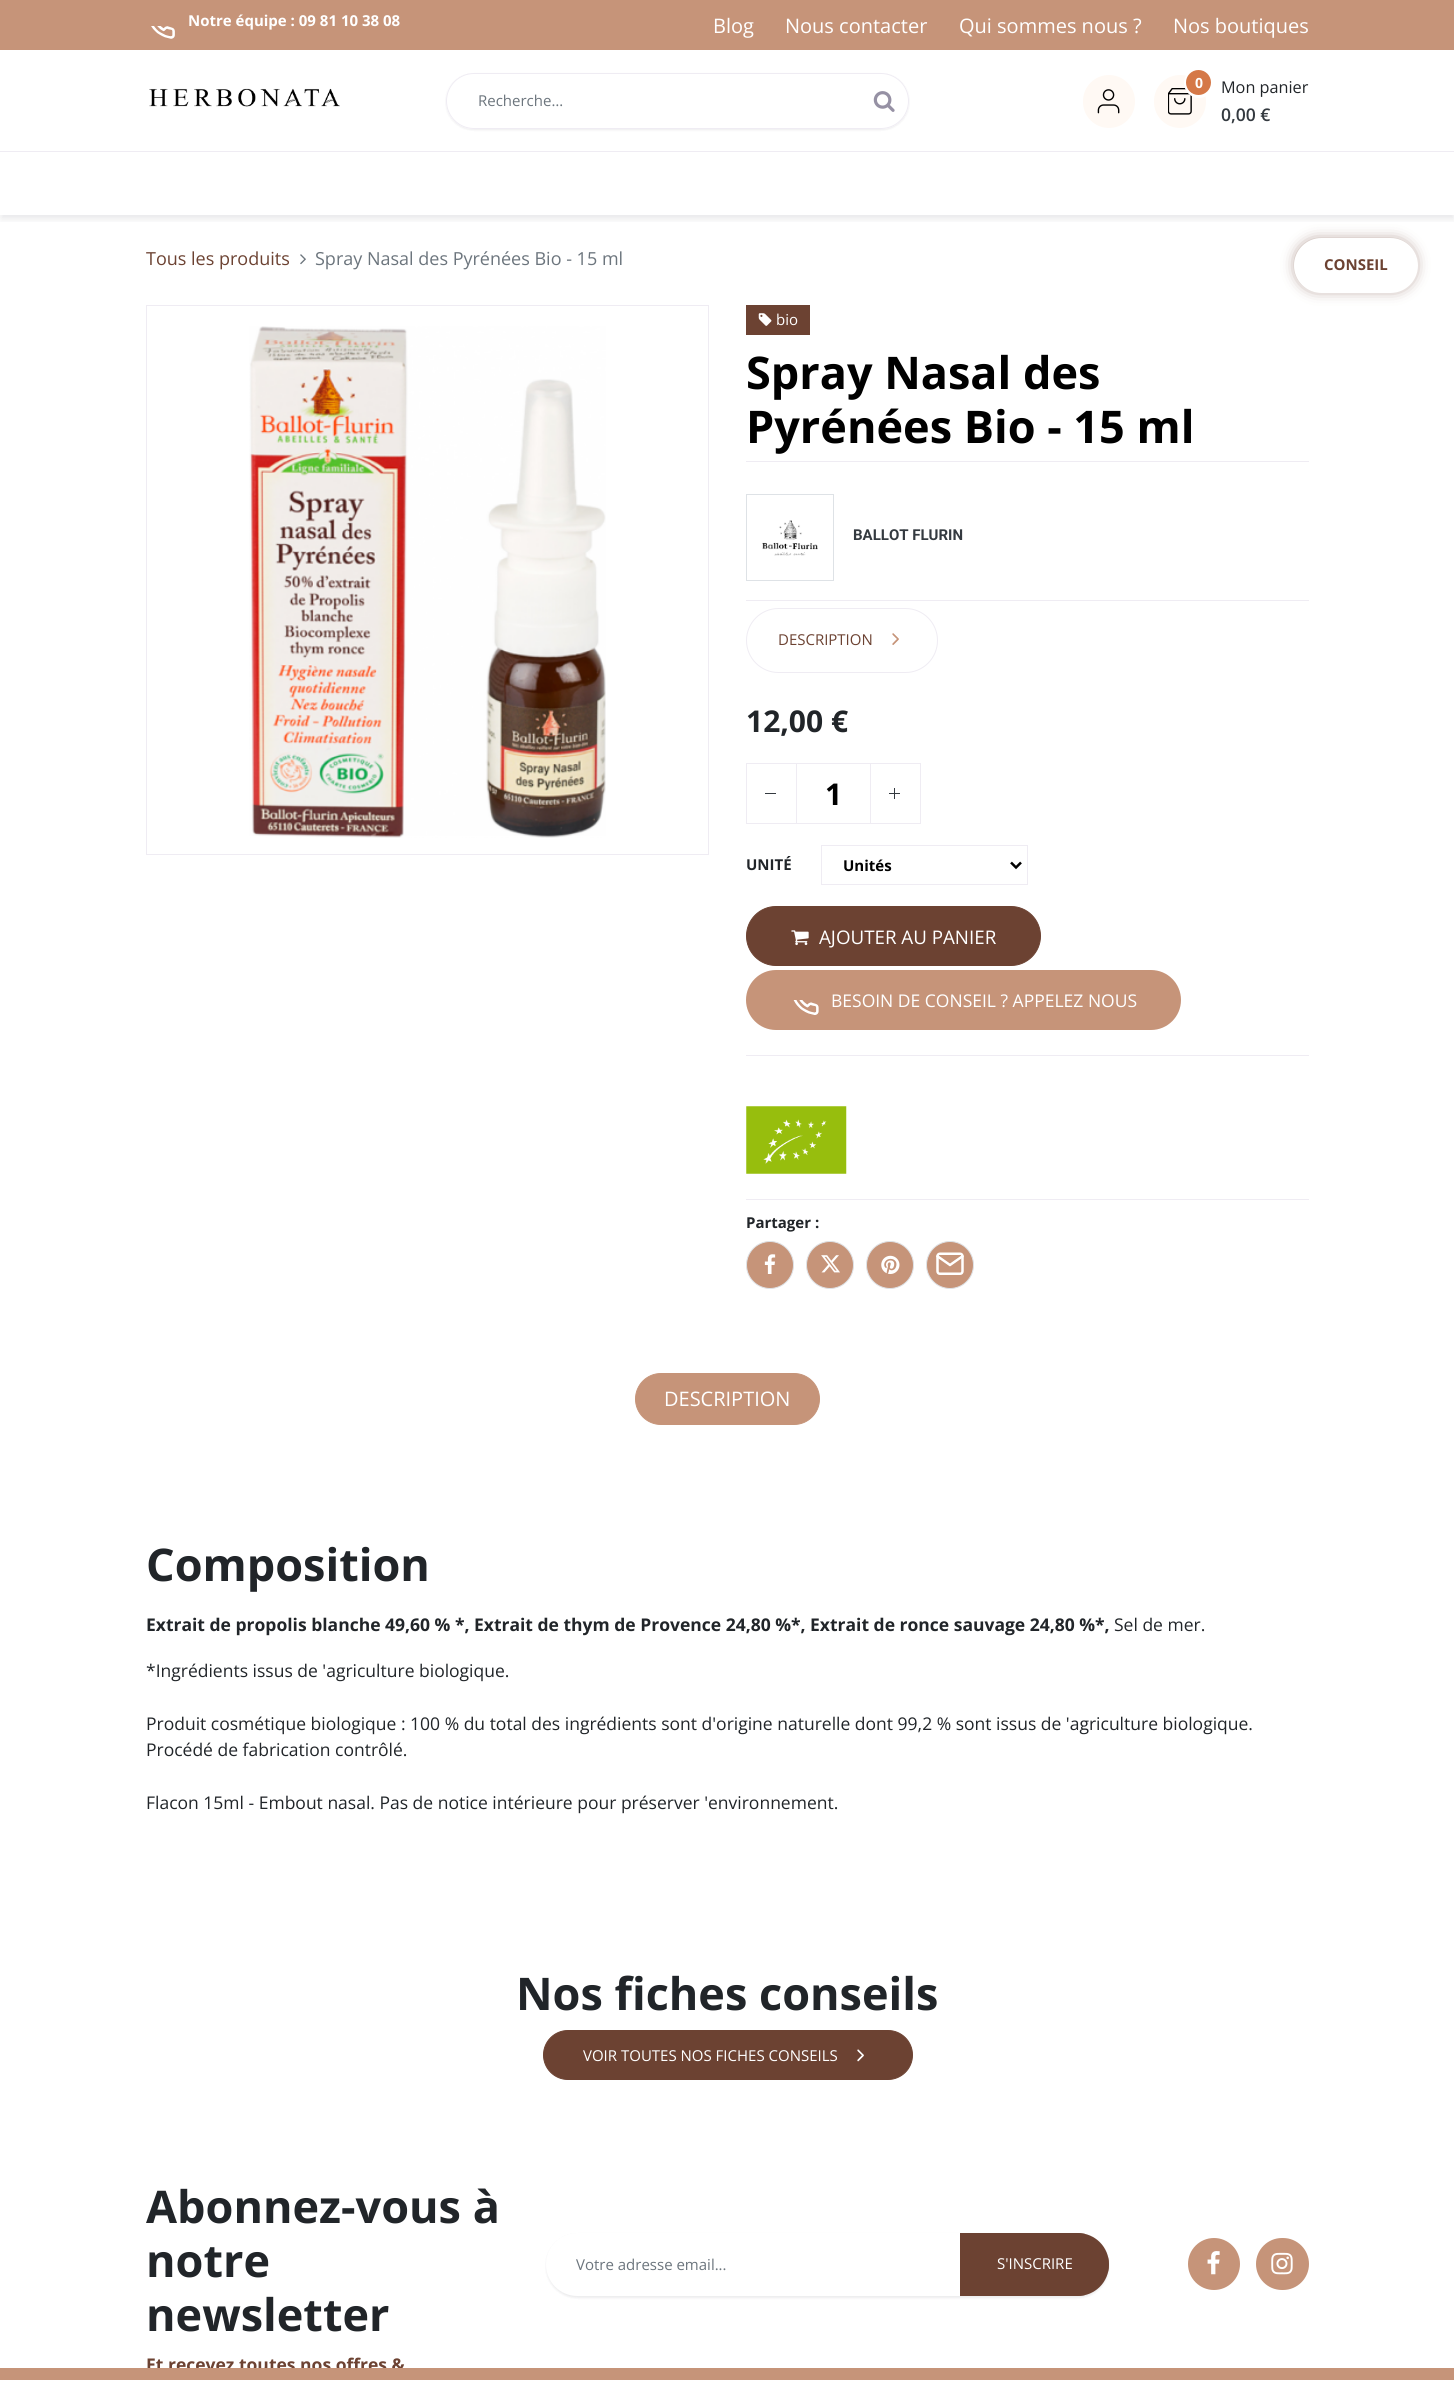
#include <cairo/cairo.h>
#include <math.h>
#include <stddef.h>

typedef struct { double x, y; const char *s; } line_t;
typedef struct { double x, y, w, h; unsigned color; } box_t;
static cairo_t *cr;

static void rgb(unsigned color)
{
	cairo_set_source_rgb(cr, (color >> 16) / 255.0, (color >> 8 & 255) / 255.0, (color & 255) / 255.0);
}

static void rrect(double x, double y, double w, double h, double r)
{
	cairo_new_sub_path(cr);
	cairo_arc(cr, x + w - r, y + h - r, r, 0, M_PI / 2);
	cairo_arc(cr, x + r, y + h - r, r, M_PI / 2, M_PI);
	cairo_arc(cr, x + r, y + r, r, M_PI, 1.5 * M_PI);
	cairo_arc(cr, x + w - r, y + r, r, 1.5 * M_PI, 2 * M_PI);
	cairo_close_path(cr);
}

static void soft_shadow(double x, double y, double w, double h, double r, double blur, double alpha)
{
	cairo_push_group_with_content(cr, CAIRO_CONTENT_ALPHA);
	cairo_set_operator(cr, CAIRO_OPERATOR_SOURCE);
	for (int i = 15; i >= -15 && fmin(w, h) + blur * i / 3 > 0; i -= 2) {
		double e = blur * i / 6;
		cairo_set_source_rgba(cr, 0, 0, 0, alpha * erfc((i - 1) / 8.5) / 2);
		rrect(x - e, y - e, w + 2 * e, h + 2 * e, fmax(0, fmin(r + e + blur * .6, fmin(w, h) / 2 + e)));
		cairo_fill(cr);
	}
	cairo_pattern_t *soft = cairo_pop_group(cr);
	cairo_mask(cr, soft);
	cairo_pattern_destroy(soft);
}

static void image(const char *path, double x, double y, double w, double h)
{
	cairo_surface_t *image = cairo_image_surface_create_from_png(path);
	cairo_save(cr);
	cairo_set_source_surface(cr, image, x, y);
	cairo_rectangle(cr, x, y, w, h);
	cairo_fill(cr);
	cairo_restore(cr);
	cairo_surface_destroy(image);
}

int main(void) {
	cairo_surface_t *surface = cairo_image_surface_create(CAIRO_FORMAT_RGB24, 1454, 2384);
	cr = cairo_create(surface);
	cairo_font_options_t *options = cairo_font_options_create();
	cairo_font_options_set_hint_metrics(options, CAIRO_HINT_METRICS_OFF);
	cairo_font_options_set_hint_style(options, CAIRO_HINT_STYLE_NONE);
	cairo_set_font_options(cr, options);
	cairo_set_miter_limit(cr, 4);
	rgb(0xffffff);
	cairo_paint(cr);
	rgb(0xc69479);
	cairo_rectangle(cr, 0, 0, 1454, 50);
	cairo_fill(cr);
	image("img/1.png", 151, 26, 24, 13);
	rgb(0xefecf3);
	cairo_rectangle(cr, 0, 151, 1454, 1);
	cairo_fill(cr);
	image("img/2.png", 149, 88, 191, 19);
	cairo_save(cr);
	cairo_set_fill_rule(cr, CAIRO_FILL_RULE_EVEN_ODD);
	cairo_new_path(cr);
	cairo_move_to(cr, 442, 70);
	cairo_line_to(cr, 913, 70);
	cairo_line_to(cr, 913, 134);
	cairo_line_to(cr, 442, 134);
	cairo_close_path(cr);
	cairo_move_to(cr, 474, 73);
	cairo_line_to(cr, 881, 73);
	cairo_curve_to(cr, 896.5, 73, 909, 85.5, 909, 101);
	cairo_curve_to(cr, 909, 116.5, 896.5, 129, 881, 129);
	cairo_line_to(cr, 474, 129);
	cairo_curve_to(cr, 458.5, 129, 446, 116.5, 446, 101);
	cairo_curve_to(cr, 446, 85.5, 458.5, 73, 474, 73);
	cairo_close_path(cr);
	cairo_clip(cr);
	rgb(0x131022);
	soft_shadow(446, 74, 463, 56, 28, 1, 0.08);
	cairo_restore(cr);
	rrect(446.5, 73.5, 462, 55, 27.5);
	cairo_set_line_width(cr, 1);
	cairo_stroke(cr);
	image("img/3.png", 873, 91, 22, 21);
	rgb(0xfff9f4);
	rrect(1083, 75, 52, 53, 26);
	cairo_fill(cr);
	image("img/4.png", 1097, 89, 23, 25);
	rrect(1154, 75, 52, 53, 26);
	cairo_fill(cr);
	image("img/5.png", 1168, 88, 24, 27);
	cairo_arc(cr, 1199, 83, 13.5, 0, 2 * M_PI);
	rgb(0xffffff);
	cairo_set_line_width(cr, 3);
	cairo_stroke(cr);
	rgb(0xd57847);
	cairo_arc(cr, 1198.5, 82.5, 12.5, 0, 2 * M_PI);
	cairo_fill(cr);
	cairo_save(cr);
	cairo_rectangle(cr, 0, 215, 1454, 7);
	cairo_clip(cr);
	rgb(0x131022);
	soft_shadow(1, 159, 1453, 60, 0, 4, 0.1);
	cairo_restore(cr);
	rgb(0x6c4232);
	soft_shadow(1300, 244, 111, 42, 21, 8, 1);
	rgb(0xffffff);
	rrect(1294, 238, 124, 55, 27.5);
	cairo_fill(cr);
	image("img/6.png", 300, 254, 6, 11);
	cairo_rectangle(cr, 146.5, 305.5, 562, 549);
	rgb(0xefecf3);
	cairo_set_line_width(cr, 1);
	cairo_stroke(cr);
	image("img/7.png", 249, 326, 357, 512);
	rgb(0x6c4232);
	cairo_rectangle(cr, 746, 305, 64, 30);
	cairo_fill(cr);
	image("img/8.png", 758, 313, 14, 13);
	rgb(0xefecf3);
	cairo_rectangle(cr, 746, 461, 563, 1);
	cairo_fill(cr);
	image("img/9.png", 762, 520, 56, 36);
	cairo_rectangle(cr, 746.5, 494.5, 87, 86);
	rgb(0xdee2e6);
	cairo_stroke(cr);
	rgb(0xefecf3);
	cairo_rectangle(cr, 746, 600, 563, 1);
	cairo_fill(cr);
	rrect(746.5, 608.5, 191, 64, 32);
	cairo_stroke(cr);
	image("img/10.png", 892, 633, 7, 12);
	cairo_rectangle(cr, 746.5, 763.5, 174, 60);
	cairo_stroke(cr);
	{
		static const box_t items[] = {
			{796, 763, 1, 61, 0xefecf3},
			{765, 793, 11, 1, 0x343a40},
			{870, 763, 1, 61, 0xefecf3},
			{889, 793, 11, 1, 0x343a40},
			{894, 788, 1, 11, 0x343a40},
		};
		for (size_t i = 0; i < sizeof items / sizeof *items; i++) {
			rgb(items[i].color);
			cairo_rectangle(cr, items[i].x, items[i].y, items[i].w, items[i].h);
			cairo_fill(cr);
		}
	}
	cairo_rectangle(cr, 821.5, 845.5, 206, 39);
	rgb(0xefecf3);
	cairo_stroke(cr);
	cairo_new_path(cr);
	cairo_move_to(cr, 1011, 862.5);
	cairo_line_to(cr, 1016, 867.5);
	cairo_line_to(cr, 1021, 862.5);
	rgb(0x000000);
	cairo_set_line_width(cr, 2.5);
	cairo_stroke(cr);
	rgb(0x6c4232);
	rrect(746.5, 906.5, 294, 59, 29.5);
	cairo_fill_preserve(cr);
	cairo_set_line_width(cr, 1);
	cairo_stroke(cr);
	image("img/11.png", 791, 930, 18, 16);
	rgb(0xc69479);
	rrect(746, 970, 435, 60, 30);
	cairo_fill(cr);
	image("img/12.png", 793, 1000, 26, 15);
	rgb(0xefecf3);
	cairo_rectangle(cr, 746, 1055, 563, 1);
	cairo_fill(cr);
	image("img/13.png", 746, 1106, 101, 68);
	cairo_rectangle(cr, 746, 1199, 563, 1);
	cairo_fill(cr);
	rgb(0xc69479);
	cairo_arc(cr, 770, 1265, 23.5, 0, 2 * M_PI);
	cairo_fill_preserve(cr);
	rgb(0xdee2e6);
	cairo_stroke(cr);
	image("img/14.png", 764, 1254, 12, 20);
	rgb(0xc69479);
	cairo_arc(cr, 830, 1265, 23.5, 0, 2 * M_PI);
	cairo_fill_preserve(cr);
	rgb(0xdee2e6);
	cairo_stroke(cr);
	image("img/15.png", 821, 1255, 19, 18);
	rgb(0xc69479);
	cairo_arc(cr, 890, 1265, 23.5, 0, 2 * M_PI);
	cairo_fill_preserve(cr);
	rgb(0xdee2e6);
	cairo_stroke(cr);
	image("img/16.png", 881, 1255, 19, 19);
	rgb(0xc69479);
	cairo_arc(cr, 950, 1265, 23.5, 0, 2 * M_PI);
	cairo_fill_preserve(cr);
	rgb(0xdee2e6);
	cairo_stroke(cr);
	image("img/17.png", 936, 1252, 28, 23);
	rgb(0xc69479);
	rrect(635.5, 1373.5, 184, 51, 25.5);
	cairo_fill_preserve(cr);
	cairo_stroke(cr);
	rgb(0x6c4232);
	rrect(543.5, 2030.5, 369, 49, 24.5);
	cairo_fill_preserve(cr);
	cairo_stroke(cr);
	image("img/18.png", 857, 2049, 7, 13);
	rgb(0x131022);
	soft_shadow(546, 2234, 563, 64, 32, 1, 0.08);
	rgb(0xffffff);
	cairo_new_path(cr);
	cairo_move_to(cr, 577.5, 2233);
	cairo_line_to(cr, 961, 2233);
	cairo_line_to(cr, 961, 2296);
	cairo_line_to(cr, 577.5, 2296);
	cairo_curve_to(cr, 560, 2296, 546, 2282, 546, 2264.5);
	cairo_curve_to(cr, 546, 2247, 560, 2233, 577.5, 2233);
	cairo_close_path(cr);
	cairo_fill(cr);
	rgb(0x6c4232);
	cairo_new_path(cr);
	cairo_move_to(cr, 960, 2233);
	cairo_line_to(cr, 1077.5, 2233);
	cairo_curve_to(cr, 1095, 2233, 1109, 2247, 1109, 2264.5);
	cairo_curve_to(cr, 1109, 2282, 1095, 2296, 1077.5, 2296);
	cairo_line_to(cr, 960, 2296);
	cairo_close_path(cr);
	cairo_fill(cr);
	cairo_set_fill_rule(cr, CAIRO_FILL_RULE_EVEN_ODD);
	cairo_new_path(cr);
	cairo_move_to(cr, 960, 2233);
	cairo_line_to(cr, 960, 2296);
	cairo_line_to(cr, 1078, 2296);
	cairo_line_to(cr, 1085, 2295);
	cairo_line_to(cr, 961, 2295);
	cairo_line_to(cr, 961, 2234);
	cairo_line_to(cr, 1085, 2234);
	cairo_line_to(cr, 1078, 2233);
	cairo_close_path(cr);
	cairo_move_to(cr, 1108, 2257);
	cairo_line_to(cr, 1108, 2272);
	cairo_curve_to(cr, 1109, 2267, 1109, 2262, 1108, 2257);
	cairo_close_path(cr);
	cairo_fill(cr);
	rgb(0xc69479);
	cairo_arc(cr, 1214, 2264, 26, 0, 2 * M_PI);
	cairo_fill(cr);
	image("img/19.png", 1207, 2251, 13, 24);
	rrect(1256, 2238, 53, 52, 26);
	cairo_fill(cr);
	image("img/20.png", 1271, 2252, 22, 23);
	cairo_select_font_face(cr, "Open Sans", CAIRO_FONT_SLANT_NORMAL, CAIRO_FONT_WEIGHT_BOLD);
	cairo_set_font_size(cr, 15);
	rgb(0xffffff);
	cairo_move_to(cr, 188, 26);
	cairo_show_text(cr, "Notre équipe : 09 81 10 38 08");
	cairo_select_font_face(cr, "Open Sans", CAIRO_FONT_SLANT_NORMAL, CAIRO_FONT_WEIGHT_NORMAL);
	cairo_set_font_size(cr, 20);
	{
		static const line_t items[] = {
			{713, 33, "Blog"},
			{785, 33, "Nous contacter"},
			{959, 33, "Qui sommes nous ?"},
			{1173, 33, "Nos boutiques"},
		};
		for (size_t i = 0; i < sizeof items / sizeof *items; i++) {
			cairo_move_to(cr, items[i].x, items[i].y);
			cairo_show_text(cr, items[i].s);
		}
	}
	cairo_set_font_size(cr, 15);
	rgb(0x6c757d);
	cairo_move_to(cr, 478, 106);
	cairo_show_text(cr, "Recherche…");
	cairo_select_font_face(cr, "Open Sans", CAIRO_FONT_SLANT_NORMAL, CAIRO_FONT_WEIGHT_BOLD);
	cairo_set_font_size(cr, 14);
	rgb(0xffffff);
	cairo_move_to(cr, 1195, 88);
	cairo_show_text(cr, "0");
	cairo_select_font_face(cr, "Open Sans", CAIRO_FONT_SLANT_NORMAL, CAIRO_FONT_WEIGHT_NORMAL);
	cairo_set_font_size(cr, 16.25);
	rgb(0x212529);
	cairo_move_to(cr, 1221, 93);
	cairo_show_text(cr, "Mon panier");
	cairo_select_font_face(cr, "Open Sans SemiBold", CAIRO_FONT_SLANT_NORMAL, CAIRO_FONT_WEIGHT_NORMAL);
	cairo_set_font_size(cr, 17.5);
	rgb(0x343a40);
	cairo_move_to(cr, 1221, 121);
	cairo_show_text(cr, "0,00 €");
	cairo_select_font_face(cr, "Open Sans", CAIRO_FONT_SLANT_NORMAL, CAIRO_FONT_WEIGHT_BOLD);
	cairo_set_font_size(cr, 15);
	rgb(0x6c4232);
	cairo_move_to(cr, 1324, 270);
	cairo_show_text(cr, "CONSEIL");
	cairo_select_font_face(cr, "Open Sans", CAIRO_FONT_SLANT_NORMAL, CAIRO_FONT_WEIGHT_NORMAL);
	cairo_set_font_size(cr, 18);
	cairo_move_to(cr, 146, 265);
	cairo_show_text(cr, "Tous les produits");
	rgb(0x6c757d);
	cairo_move_to(cr, 315, 265);
	cairo_show_text(cr, "Spray Nasal des Pyrénées Bio - 15 ml");
	cairo_set_font_size(cr, 15);
	rgb(0xffffff);
	cairo_move_to(cr, 776, 325);
	cairo_show_text(cr, "bio");
	cairo_select_font_face(cr, "Open Sans", CAIRO_FONT_SLANT_NORMAL, CAIRO_FONT_WEIGHT_BOLD);
	cairo_set_font_size(cr, 45);
	rgb(0x000000);
	cairo_move_to(cr, 746, 389);
	cairo_show_text(cr, "Spray Nasal des");
	cairo_move_to(cr, 746, 443);
	cairo_show_text(cr, "Pyrénées Bio - 15 ml");
	cairo_select_font_face(cr, "Roboto", CAIRO_FONT_SLANT_NORMAL, CAIRO_FONT_WEIGHT_BOLD);
	cairo_set_font_size(cr, 15);
	rgb(0x343a40);
	cairo_move_to(cr, 853, 540);
	cairo_show_text(cr, "BALLOT FLURIN");
	cairo_select_font_face(cr, "Open Sans", CAIRO_FONT_SLANT_NORMAL, CAIRO_FONT_WEIGHT_NORMAL);
	rgb(0x6c4232);
	cairo_move_to(cr, 778, 645);
	cairo_show_text(cr, "DESCRIPTION");
	cairo_select_font_face(cr, "Open Sans", CAIRO_FONT_SLANT_NORMAL, CAIRO_FONT_WEIGHT_BOLD);
	cairo_set_font_size(cr, 30);
	rgb(0x212529);
	cairo_move_to(cr, 746, 732);
	cairo_show_text(cr, "12,00 €");
	rgb(0x000000);
	cairo_move_to(cr, 825, 805);
	cairo_show_text(cr, "1");
	cairo_set_font_size(cr, 15);
	rgb(0x212529);
	cairo_move_to(cr, 746, 870);
	cairo_show_text(cr, "UNITÉ");
	rgb(0x000000);
	cairo_move_to(cr, 843, 871);
	cairo_show_text(cr, "Unités");
	cairo_select_font_face(cr, "Open Sans", CAIRO_FONT_SLANT_NORMAL, CAIRO_FONT_WEIGHT_NORMAL);
	cairo_set_font_size(cr, 18.75);
	rgb(0xffffff);
	cairo_move_to(cr, 819, 944);
	cairo_show_text(cr, "AJOUTER AU PANIER");
	cairo_set_font_size(cr, 17.5);
	cairo_move_to(cr, 831, 1007);
	cairo_show_text(cr, "BESOIN DE CONSEIL ? APPELEZ NOUS");
	cairo_select_font_face(cr, "Open Sans", CAIRO_FONT_SLANT_NORMAL, CAIRO_FONT_WEIGHT_BOLD);
	cairo_set_font_size(cr, 15);
	rgb(0x212529);
	cairo_move_to(cr, 746, 1228);
	cairo_show_text(cr, "Partager :");
	cairo_select_font_face(cr, "Open Sans", CAIRO_FONT_SLANT_NORMAL, CAIRO_FONT_WEIGHT_NORMAL);
	cairo_set_font_size(cr, 20);
	rgb(0xffffff);
	cairo_move_to(cr, 664, 1406);
	cairo_show_text(cr, "DESCRIPTION");
	cairo_select_font_face(cr, "Open Sans", CAIRO_FONT_SLANT_NORMAL, CAIRO_FONT_WEIGHT_BOLD);
	cairo_set_font_size(cr, 45);
	rgb(0x212529);
	cairo_move_to(cr, 146, 1581);
	cairo_show_text(cr, "Composition");
	cairo_set_font_size(cr, 17.5);
	cairo_move_to(cr, 146, 1631);
	cairo_show_text(cr, "Extrait de propolis blanche 49,60 % *, Extrait de thym de Provence 24,80 %*, Extrait de ronce sauvage 24,80 %*,");
	cairo_select_font_face(cr, "Open Sans", CAIRO_FONT_SLANT_NORMAL, CAIRO_FONT_WEIGHT_NORMAL);
	{
		static const line_t items[] = {
			{1114, 1631, "Sel de mer."},
			{146, 1677, "*Ingrédients issus de 'agriculture biologique."},
			{146, 1730, "Produit cosmétique biologique : 100 % du total des ingrédients sont d'origine naturelle dont 99,2 % sont issus de 'agriculture biologique."},
			{146, 1756, "Procédé de fabrication contrôlé."},
			{146, 1809, "Flacon 15ml - Embout nasal. Pas de notice intérieure pour préserver 'environnement."},
		};
		for (size_t i = 0; i < sizeof items / sizeof *items; i++) {
			cairo_move_to(cr, items[i].x, items[i].y);
			cairo_show_text(cr, items[i].s);
		}
	}
	cairo_select_font_face(cr, "Open Sans", CAIRO_FONT_SLANT_NORMAL, CAIRO_FONT_WEIGHT_BOLD);
	cairo_set_font_size(cr, 45);
	cairo_move_to(cr, 516, 2010);
	cairo_show_text(cr, "Nos fiches conseils");
	cairo_select_font_face(cr, "Open Sans", CAIRO_FONT_SLANT_NORMAL, CAIRO_FONT_WEIGHT_NORMAL);
	cairo_set_font_size(cr, 15);
	rgb(0xffffff);
	cairo_move_to(cr, 583, 2061);
	cairo_show_text(cr, "VOIR TOUTES NOS FICHES CONSEILS");
	cairo_select_font_face(cr, "Open Sans", CAIRO_FONT_SLANT_NORMAL, CAIRO_FONT_WEIGHT_BOLD);
	cairo_set_font_size(cr, 45);
	rgb(0x212529);
	{
		static const line_t items[] = {
			{146, 2223, "Abonnez-vous à"},
			{146, 2277, "notre"},
			{146, 2331, "newsletter"},
		};
		for (size_t i = 0; i < sizeof items / sizeof *items; i++) {
			cairo_move_to(cr, items[i].x, items[i].y);
			cairo_show_text(cr, items[i].s);
		}
	}
	cairo_set_font_size(cr, 17.5);
	rgb(0x6c4232);
	cairo_move_to(cr, 146, 2371);
	cairo_show_text(cr, "Et recevez toutes nos offres &");
	cairo_select_font_face(cr, "Open Sans", CAIRO_FONT_SLANT_NORMAL, CAIRO_FONT_WEIGHT_NORMAL);
	cairo_set_font_size(cr, 15);
	rgb(0x6c757d);
	cairo_move_to(cr, 576, 2270);
	cairo_show_text(cr, "Votre adresse email...");
	rgb(0xffffff);
	cairo_move_to(cr, 997, 2269);
	cairo_show_text(cr, "S'INSCRIRE");
	rgb(0xc69479);
	cairo_rectangle(cr, 0, 2368, 1454, 12);
	cairo_fill(cr);
	cairo_surface_write_to_png(surface, "page.png");
	cairo_font_options_destroy(options);
	cairo_destroy(cr);
	cairo_surface_destroy(surface);
	return 0;
}
